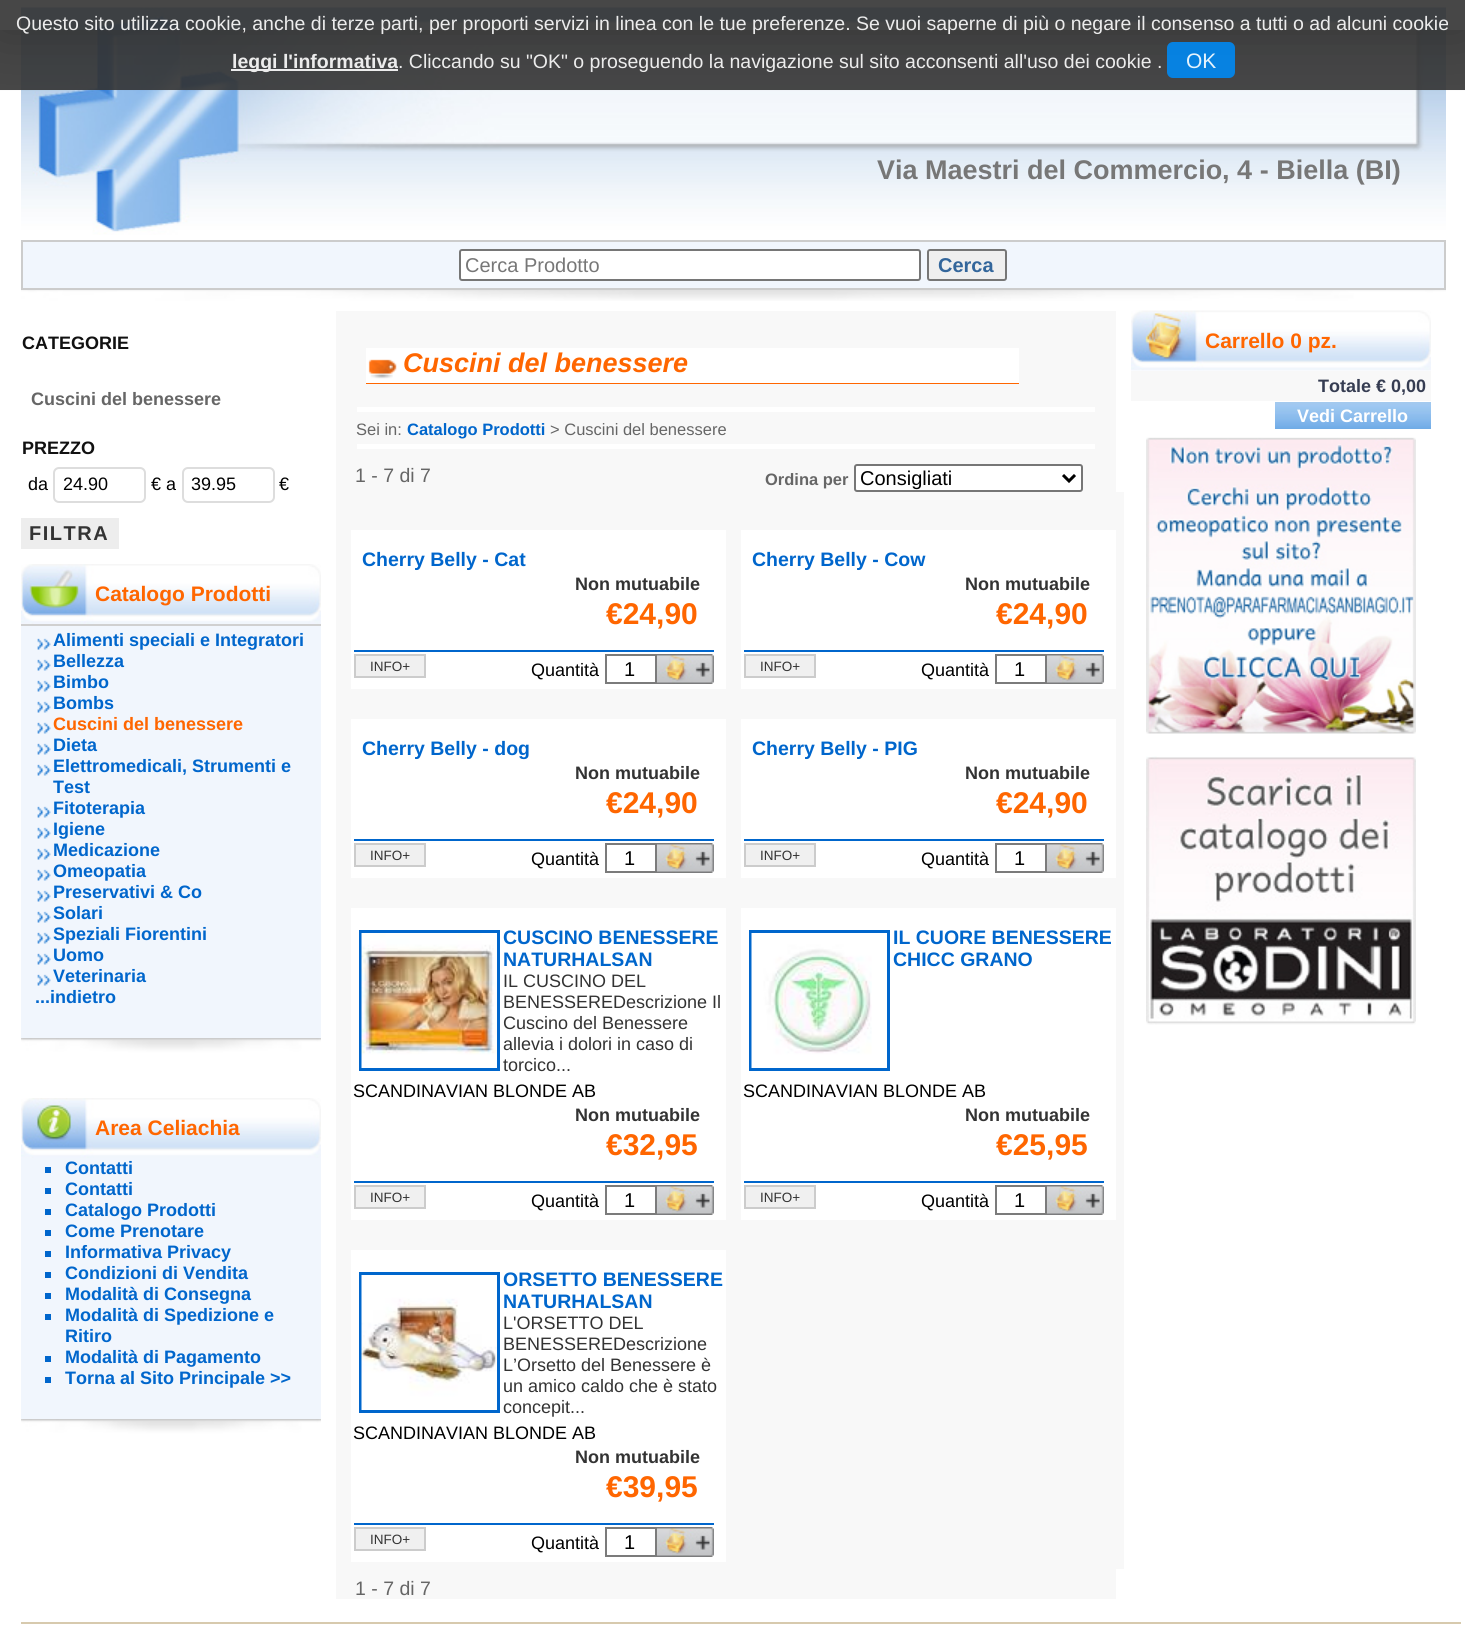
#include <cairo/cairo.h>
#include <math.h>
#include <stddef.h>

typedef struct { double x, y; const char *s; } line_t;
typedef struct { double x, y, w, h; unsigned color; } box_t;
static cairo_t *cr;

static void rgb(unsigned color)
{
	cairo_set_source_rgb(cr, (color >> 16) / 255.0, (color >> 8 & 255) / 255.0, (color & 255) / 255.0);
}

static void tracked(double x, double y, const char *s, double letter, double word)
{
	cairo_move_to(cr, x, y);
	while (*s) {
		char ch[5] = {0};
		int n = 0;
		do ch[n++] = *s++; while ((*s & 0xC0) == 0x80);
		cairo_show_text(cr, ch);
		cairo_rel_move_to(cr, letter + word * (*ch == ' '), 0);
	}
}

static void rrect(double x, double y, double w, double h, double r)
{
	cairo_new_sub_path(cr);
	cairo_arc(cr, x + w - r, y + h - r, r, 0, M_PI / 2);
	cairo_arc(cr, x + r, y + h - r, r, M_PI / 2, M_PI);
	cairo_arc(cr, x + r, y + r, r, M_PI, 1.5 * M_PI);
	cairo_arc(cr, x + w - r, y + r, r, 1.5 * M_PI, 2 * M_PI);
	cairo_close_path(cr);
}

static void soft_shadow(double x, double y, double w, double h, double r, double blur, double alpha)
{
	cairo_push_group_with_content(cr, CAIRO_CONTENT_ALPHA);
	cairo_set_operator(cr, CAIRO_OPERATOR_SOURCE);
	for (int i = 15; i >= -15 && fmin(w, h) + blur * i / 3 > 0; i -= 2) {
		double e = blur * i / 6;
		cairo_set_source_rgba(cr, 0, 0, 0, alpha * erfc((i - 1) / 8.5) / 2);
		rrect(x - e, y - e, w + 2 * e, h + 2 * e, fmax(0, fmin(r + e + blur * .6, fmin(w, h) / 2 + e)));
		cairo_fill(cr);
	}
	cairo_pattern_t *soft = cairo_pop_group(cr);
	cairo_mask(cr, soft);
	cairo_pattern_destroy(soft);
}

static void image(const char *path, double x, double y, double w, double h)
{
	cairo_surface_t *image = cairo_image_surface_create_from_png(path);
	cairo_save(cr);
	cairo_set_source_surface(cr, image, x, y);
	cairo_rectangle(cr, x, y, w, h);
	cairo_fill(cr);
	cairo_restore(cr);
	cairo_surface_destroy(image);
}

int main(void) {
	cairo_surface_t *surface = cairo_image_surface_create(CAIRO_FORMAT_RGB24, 1465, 1643);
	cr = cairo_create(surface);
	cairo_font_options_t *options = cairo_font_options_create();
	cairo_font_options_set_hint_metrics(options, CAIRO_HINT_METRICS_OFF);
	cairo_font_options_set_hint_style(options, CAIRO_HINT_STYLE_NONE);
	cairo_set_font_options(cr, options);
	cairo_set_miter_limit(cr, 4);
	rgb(0xffffff);
	cairo_paint(cr);
	image("img/15.png", 21, 7, 1425, 228);
	cairo_save(cr);
	cairo_rectangle(cr, 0, 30, 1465, 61);
	cairo_clip(cr);
	rgb(0x444444);
	soft_shadow(0, 0, 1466, 30, 0, 30, 1);
	cairo_restore(cr);
	cairo_set_source_rgba(cr, 0.2, 0.2, 0.2, 0.9);
	cairo_rectangle(cr, 0, 0, 1465, 90);
	cairo_fill(cr);
	cairo_set_source_rgba(cr, 1, 1, 1, 0.9);
	cairo_rectangle(cr, 231, 69, 167, 2);
	cairo_fill(cr);
	cairo_set_source_rgba(cr, 0, 0.537, 0.949, 0.9);
	rrect(1167, 42, 68, 36, 6);
	cairo_fill(cr);
	rrect(54, 468, 91, 34, 5);
	rgb(0xdddddd);
	cairo_stroke(cr);
	rrect(183, 468, 91, 34, 5);
	cairo_stroke(cr);
	rgb(0xededed);
	cairo_rectangle(cr, 21, 518, 98, 31);
	cairo_fill(cr);
	image("img/1.png", 21, 564, 300, 60);
	rgb(0xf1f6fd);
	cairo_rectangle(cr, 21, 626, 300, 412);
	cairo_fill(cr);
	image("img/2.png", 21, 1038, 300, 15);
	rgb(0xd0d0d0);
	cairo_rectangle(cr, 21, 624, 300, 2);
	cairo_fill(cr);
	image("img/3.png", 37, 638, 14, 12);
	image("img/3.png", 37, 659, 14, 12);
	image("img/3.png", 37, 680, 14, 12);
	image("img/3.png", 37, 701, 14, 12);
	image("img/3.png", 37, 722, 14, 12);
	image("img/3.png", 37, 743, 14, 12);
	image("img/3.png", 37, 764, 14, 12);
	image("img/3.png", 37, 806, 14, 12);
	image("img/3.png", 37, 827, 14, 12);
	image("img/3.png", 37, 848, 14, 12);
	image("img/3.png", 37, 869, 14, 12);
	image("img/3.png", 37, 890, 14, 12);
	image("img/3.png", 37, 911, 14, 12);
	image("img/3.png", 37, 932, 14, 12);
	image("img/3.png", 37, 953, 14, 12);
	image("img/3.png", 37, 974, 14, 12);
	rgb(0xf1f6fd);
	cairo_rectangle(cr, 21, 1158, 300, 261);
	cairo_fill(cr);
	image("img/2.png", 21, 1419, 300, 15);
	image("img/4.png", 21, 1098, 300, 60);
	{
		static const box_t items[] = {
			{45, 1167, 6, 6, 0x0066cc},
			{45, 1188, 6, 6, 0x0066cc},
			{45, 1209, 6, 6, 0x0066cc},
			{45, 1230, 6, 6, 0x0066cc},
			{45, 1251, 6, 6, 0x0066cc},
			{45, 1272, 6, 6, 0x0066cc},
			{45, 1293, 6, 6, 0x0066cc},
			{45, 1314, 6, 6, 0x0066cc},
			{45, 1356, 6, 6, 0x0066cc},
			{45, 1377, 6, 6, 0x0066cc},
			{336, 311, 780, 1288, 0xf8f8f8},
			{366, 348, 653, 35, 0xffffff},
		};
		for (size_t i = 0; i < sizeof items / sizeof *items; i++) {
			rgb(items[i].color);
			cairo_rectangle(cr, items[i].x, items[i].y, items[i].w, items[i].h);
			cairo_fill(cr);
		}
	}
	image("img/5.png", 368, 359, 29, 20);
	{
		static const box_t items[] = {
			{366, 383, 653, 1, 0xff6600},
			{357, 407, 738, 5, 0xffffff},
			{357, 444, 738, 5, 0xffffff},
		};
		for (size_t i = 0; i < sizeof items / sizeof *items; i++) {
			rgb(items[i].color);
			cairo_rectangle(cr, items[i].x, items[i].y, items[i].w, items[i].h);
			cairo_fill(cr);
		}
	}
	rrect(855, 465, 227, 26, 2);
	cairo_fill_preserve(cr);
	rgb(0x767676);
	cairo_stroke(cr);
	cairo_new_path(cr);
	cairo_move_to(cr, 1063, 475);
	cairo_line_to(cr, 1069, 481);
	cairo_line_to(cr, 1075, 475);
	rgb(0x000000);
	cairo_set_line_width(cr, 3);
	cairo_stroke(cr);
	{
		static const box_t items[] = {
			{1116, 492, 8, 1077, 0xf8f8f8},
			{351, 530, 375, 159, 0xffffff},
			{354, 650, 360, 2, 0x0066cc},
		};
		for (size_t i = 0; i < sizeof items / sizeof *items; i++) {
			rgb(items[i].color);
			cairo_rectangle(cr, items[i].x, items[i].y, items[i].w, items[i].h);
			cairo_fill(cr);
		}
	}
	rgb(0xf0f0f0);
	cairo_rectangle(cr, 355, 655, 70, 22);
	cairo_fill_preserve(cr);
	rgb(0xcccccc);
	cairo_set_line_width(cr, 2);
	cairo_stroke(cr);
	cairo_rectangle(cr, 606, 655, 50, 28);
	rgb(0x7b7b7b);
	cairo_stroke(cr);
	image("img/6.png", 657, 654, 57, 30);
	rgb(0xffffff);
	cairo_rectangle(cr, 741, 530, 375, 159);
	cairo_fill(cr);
	rgb(0x0066cc);
	cairo_rectangle(cr, 744, 650, 360, 2);
	cairo_fill(cr);
	rgb(0xf0f0f0);
	cairo_rectangle(cr, 745, 655, 70, 22);
	cairo_fill_preserve(cr);
	rgb(0xcccccc);
	cairo_stroke(cr);
	cairo_rectangle(cr, 996, 655, 50, 28);
	rgb(0x7b7b7b);
	cairo_stroke(cr);
	image("img/7.png", 1047, 654, 57, 30);
	rgb(0xffffff);
	cairo_rectangle(cr, 351, 719, 375, 159);
	cairo_fill(cr);
	rgb(0x0066cc);
	cairo_rectangle(cr, 354, 839, 360, 2);
	cairo_fill(cr);
	rgb(0xf0f0f0);
	cairo_rectangle(cr, 355, 844, 70, 22);
	cairo_fill_preserve(cr);
	rgb(0xcccccc);
	cairo_stroke(cr);
	cairo_rectangle(cr, 606, 844, 50, 28);
	rgb(0x7b7b7b);
	cairo_stroke(cr);
	image("img/6.png", 657, 843, 57, 30);
	rgb(0xffffff);
	cairo_rectangle(cr, 741, 719, 375, 159);
	cairo_fill(cr);
	rgb(0x0066cc);
	cairo_rectangle(cr, 744, 839, 360, 2);
	cairo_fill(cr);
	rgb(0xf0f0f0);
	cairo_rectangle(cr, 745, 844, 70, 22);
	cairo_fill_preserve(cr);
	rgb(0xcccccc);
	cairo_stroke(cr);
	cairo_rectangle(cr, 996, 844, 50, 28);
	rgb(0x7b7b7b);
	cairo_stroke(cr);
	image("img/7.png", 1047, 843, 57, 30);
	rgb(0xffffff);
	cairo_rectangle(cr, 351, 908, 375, 312);
	cairo_fill(cr);
	cairo_rectangle(cr, 360.5, 931.5, 138, 138);
	rgb(0x0066cc);
	cairo_set_line_width(cr, 3);
	cairo_stroke(cr);
	image("img/8.png", 361, 933, 136, 135);
	cairo_rectangle(cr, 354, 1181, 360, 2);
	cairo_fill(cr);
	rgb(0xf0f0f0);
	cairo_rectangle(cr, 355, 1186, 70, 22);
	cairo_fill_preserve(cr);
	rgb(0xcccccc);
	cairo_set_line_width(cr, 2);
	cairo_stroke(cr);
	cairo_rectangle(cr, 606, 1186, 50, 28);
	rgb(0x7b7b7b);
	cairo_stroke(cr);
	image("img/6.png", 657, 1185, 57, 30);
	rgb(0xffffff);
	cairo_rectangle(cr, 741, 908, 375, 312);
	cairo_fill(cr);
	cairo_rectangle(cr, 750.5, 931.5, 138, 138);
	rgb(0x0066cc);
	cairo_set_line_width(cr, 3);
	cairo_stroke(cr);
	image("img/9.png", 751, 933, 121, 135);
	cairo_rectangle(cr, 744, 1181, 360, 2);
	cairo_fill(cr);
	rgb(0xf0f0f0);
	cairo_rectangle(cr, 745, 1186, 70, 22);
	cairo_fill_preserve(cr);
	rgb(0xcccccc);
	cairo_set_line_width(cr, 2);
	cairo_stroke(cr);
	cairo_rectangle(cr, 996, 1186, 50, 28);
	rgb(0x7b7b7b);
	cairo_stroke(cr);
	image("img/7.png", 1047, 1185, 57, 30);
	rgb(0xffffff);
	cairo_rectangle(cr, 351, 1250, 375, 312);
	cairo_fill(cr);
	cairo_rectangle(cr, 360.5, 1273.5, 138, 138);
	rgb(0x0066cc);
	cairo_set_line_width(cr, 3);
	cairo_stroke(cr);
	image("img/10.png", 361, 1275, 136, 135);
	cairo_rectangle(cr, 354, 1523, 360, 2);
	cairo_fill(cr);
	rgb(0xf0f0f0);
	cairo_rectangle(cr, 355, 1528, 70, 22);
	cairo_fill_preserve(cr);
	rgb(0xcccccc);
	cairo_set_line_width(cr, 2);
	cairo_stroke(cr);
	cairo_rectangle(cr, 606, 1528, 50, 28);
	rgb(0x7b7b7b);
	cairo_stroke(cr);
	image("img/6.png", 657, 1527, 57, 30);
	image("img/11.png", 1131, 310, 300, 61);
	rgb(0xf8f8f8);
	cairo_rectangle(cr, 1131, 371, 300, 30);
	cairo_fill(cr);
	image("img/12.png", 1275, 402, 156, 27);
	image("img/13.png", 1146, 437, 270, 297);
	image("img/14.png", 1146, 756, 270, 269);
	image("img/16.png", 21, 290, 1425, 11);
	rgb(0xf1f6fd);
	cairo_rectangle(cr, 22, 241, 1423, 48);
	cairo_fill_preserve(cr);
	rgb(0xcccccc);
	cairo_stroke(cr);
	rgb(0xffffff);
	rrect(460, 250, 460, 30, 2);
	cairo_fill_preserve(cr);
	rgb(0x767676);
	cairo_stroke(cr);
	rgb(0xefefef);
	rrect(928, 250, 78, 30, 2);
	cairo_fill_preserve(cr);
	rgb(0x767676);
	cairo_stroke(cr);
	rgb(0xd7caae);
	cairo_rectangle(cr, 21, 1622, 1440, 2);
	cairo_fill(cr);
	cairo_select_font_face(cr, "Liberation Sans", CAIRO_FONT_SLANT_NORMAL, CAIRO_FONT_WEIGHT_NORMAL);
	cairo_set_font_size(cr, 19.5);
	rgb(0xececec);
	cairo_move_to(cr, 16, 30);
	cairo_show_text(cr, "Questo sito utilizza cookie, anche di terze parti, per proporti servizi in linea con le tue preferenze. Se vuoi saperne di più o negare il consenso a tutti o ad alcuni cookie");
	cairo_select_font_face(cr, "Liberation Sans", CAIRO_FONT_SLANT_NORMAL, CAIRO_FONT_WEIGHT_BOLD);
	cairo_move_to(cr, 232, 68);
	cairo_show_text(cr, "leggi l'informativa");
	cairo_select_font_face(cr, "Liberation Sans", CAIRO_FONT_SLANT_NORMAL, CAIRO_FONT_WEIGHT_NORMAL);
	cairo_move_to(cr, 398, 68);
	cairo_show_text(cr, ". Cliccando su \"OK\" o proseguendo la navigazione sul sito acconsenti all'uso dei cookie .");
	cairo_set_font_size(cr, 21);
	rgb(0xe6f3fc);
	cairo_move_to(cr, 1186, 68);
	cairo_show_text(cr, "OK");
	cairo_select_font_face(cr, "Liberation Sans", CAIRO_FONT_SLANT_NORMAL, CAIRO_FONT_WEIGHT_BOLD);
	cairo_set_font_size(cr, 18);
	rgb(0x111111);
	cairo_move_to(cr, 22, 349);
	cairo_show_text(cr, "CATEGORIE");
	rgb(0x666666);
	cairo_move_to(cr, 31, 405);
	cairo_show_text(cr, "Cuscini del benessere");
	rgb(0x111111);
	cairo_move_to(cr, 22, 454);
	cairo_show_text(cr, "PREZZO");
	cairo_select_font_face(cr, "Liberation Sans", CAIRO_FONT_SLANT_NORMAL, CAIRO_FONT_WEIGHT_NORMAL);
	rgb(0x000000);
	{
		static const line_t items[] = {
			{28, 490, "da"},
			{63, 490, "24.90"},
			{151, 490, "€ a"},
			{191, 490, "39.95"},
			{279, 490, "€"},
		};
		for (size_t i = 0; i < sizeof items / sizeof *items; i++) {
			cairo_move_to(cr, items[i].x, items[i].y);
			cairo_show_text(cr, items[i].s);
		}
	}
	cairo_select_font_face(cr, "Liberation Sans", CAIRO_FONT_SLANT_NORMAL, CAIRO_FONT_WEIGHT_BOLD);
	cairo_set_font_size(cr, 20);
	rgb(0x333333);
	tracked(29, 540, "FILTRA", 1.5, 0);
	cairo_set_font_size(cr, 21);
	rgb(0xff6600);
	cairo_move_to(cr, 95, 601);
	cairo_show_text(cr, "Catalogo Prodotti");
	cairo_set_font_size(cr, 18);
	rgb(0x0066cc);
	{
		static const line_t items[] = {
			{53, 646, "Alimenti speciali e Integratori"},
			{53, 667, "Bellezza"},
			{53, 688, "Bimbo"},
			{53, 709, "Bombs"},
		};
		for (size_t i = 0; i < sizeof items / sizeof *items; i++) {
			cairo_move_to(cr, items[i].x, items[i].y);
			cairo_show_text(cr, items[i].s);
		}
	}
	rgb(0xff6600);
	cairo_move_to(cr, 53, 730);
	cairo_show_text(cr, "Cuscini del benessere");
	rgb(0x0066cc);
	{
		static const line_t items[] = {
			{53, 751, "Dieta"},
			{53, 772, "Elettromedicali, Strumenti e"},
			{53, 793, "Test"},
			{53, 814, "Fitoterapia"},
			{53, 835, "Igiene"},
			{53, 856, "Medicazione"},
			{53, 877, "Omeopatia"},
			{53, 898, "Preservativi & Co"},
			{53, 919, "Solari"},
			{53, 940, "Speziali Fiorentini"},
			{53, 961, "Uomo"},
			{53, 982, "Veterinaria"},
			{35, 1003, "...indietro"},
		};
		for (size_t i = 0; i < sizeof items / sizeof *items; i++) {
			cairo_move_to(cr, items[i].x, items[i].y);
			cairo_show_text(cr, items[i].s);
		}
	}
	cairo_set_font_size(cr, 21);
	rgb(0xff6600);
	cairo_move_to(cr, 95, 1135);
	cairo_show_text(cr, "Area Celiachia");
	cairo_set_font_size(cr, 18);
	rgb(0x0066cc);
	{
		static const line_t items[] = {
			{65, 1174, "Contatti"},
			{65, 1195, "Contatti"},
			{65, 1216, "Catalogo Prodotti"},
			{65, 1237, "Come Prenotare"},
			{65, 1258, "Informativa Privacy"},
			{65, 1279, "Condizioni di Vendita"},
			{65, 1300, "Modalità di Consegna"},
			{65, 1321, "Modalità di Spedizione e"},
			{65, 1342, "Ritiro"},
			{65, 1363, "Modalità di Pagamento"},
			{65, 1384, "Torna al Sito Principale >>"},
		};
		for (size_t i = 0; i < sizeof items / sizeof *items; i++) {
			cairo_move_to(cr, items[i].x, items[i].y);
			cairo_show_text(cr, items[i].s);
		}
	}
	cairo_select_font_face(cr, "Liberation Sans", CAIRO_FONT_SLANT_ITALIC, CAIRO_FONT_WEIGHT_BOLD);
	cairo_set_font_size(cr, 27);
	rgb(0xff6600);
	cairo_move_to(cr, 403, 372);
	cairo_show_text(cr, "Cuscini del benessere");
	cairo_select_font_face(cr, "Liberation Sans", CAIRO_FONT_SLANT_NORMAL, CAIRO_FONT_WEIGHT_NORMAL);
	cairo_set_font_size(cr, 16.5);
	rgb(0x666666);
	cairo_move_to(cr, 356, 435);
	cairo_show_text(cr, "Sei in:");
	cairo_select_font_face(cr, "Liberation Sans", CAIRO_FONT_SLANT_NORMAL, CAIRO_FONT_WEIGHT_BOLD);
	rgb(0x0066cc);
	cairo_move_to(cr, 407, 435);
	cairo_show_text(cr, "Catalogo Prodotti");
	cairo_select_font_face(cr, "Liberation Sans", CAIRO_FONT_SLANT_NORMAL, CAIRO_FONT_WEIGHT_NORMAL);
	rgb(0x666666);
	cairo_move_to(cr, 550, 435);
	cairo_show_text(cr, "> Cuscini del benessere");
	cairo_set_font_size(cr, 19.5);
	cairo_move_to(cr, 355, 482);
	cairo_show_text(cr, "1 - 7 di 7");
	cairo_select_font_face(cr, "Liberation Sans", CAIRO_FONT_SLANT_NORMAL, CAIRO_FONT_WEIGHT_BOLD);
	cairo_set_font_size(cr, 16.5);
	cairo_move_to(cr, 765, 485);
	cairo_show_text(cr, "Ordina per");
	cairo_select_font_face(cr, "Liberation Sans", CAIRO_FONT_SLANT_NORMAL, CAIRO_FONT_WEIGHT_NORMAL);
	cairo_set_font_size(cr, 20);
	rgb(0x000000);
	cairo_move_to(cr, 860, 485);
	cairo_show_text(cr, "Consigliati");
	cairo_select_font_face(cr, "Liberation Sans", CAIRO_FONT_SLANT_NORMAL, CAIRO_FONT_WEIGHT_BOLD);
	cairo_set_font_size(cr, 19.5);
	rgb(0x0066cc);
	cairo_move_to(cr, 362, 566);
	cairo_show_text(cr, "Cherry Belly - Cat");
	cairo_set_font_size(cr, 18);
	rgb(0x333333);
	cairo_move_to(cr, 575, 590);
	cairo_show_text(cr, "Non mutuabile");
	cairo_set_font_size(cr, 30);
	rgb(0xff6600);
	cairo_move_to(cr, 606, 624);
	cairo_show_text(cr, "€24,90");
	cairo_select_font_face(cr, "Liberation Sans", CAIRO_FONT_SLANT_NORMAL, CAIRO_FONT_WEIGHT_NORMAL);
	cairo_set_font_size(cr, 13.5);
	rgb(0x333333);
	cairo_move_to(cr, 370, 671);
	cairo_show_text(cr, "INFO+");
	cairo_set_font_size(cr, 18);
	rgb(0x000000);
	cairo_move_to(cr, 531, 676);
	cairo_show_text(cr, "Quantità");
	cairo_set_font_size(cr, 20);
	cairo_move_to(cr, 624, 676);
	cairo_show_text(cr, "1");
	cairo_select_font_face(cr, "Liberation Sans", CAIRO_FONT_SLANT_NORMAL, CAIRO_FONT_WEIGHT_BOLD);
	cairo_set_font_size(cr, 19.5);
	rgb(0x0066cc);
	cairo_move_to(cr, 752, 566);
	cairo_show_text(cr, "Cherry Belly - Cow");
	cairo_set_font_size(cr, 18);
	rgb(0x333333);
	cairo_move_to(cr, 965, 590);
	cairo_show_text(cr, "Non mutuabile");
	cairo_set_font_size(cr, 30);
	rgb(0xff6600);
	cairo_move_to(cr, 996, 624);
	cairo_show_text(cr, "€24,90");
	cairo_select_font_face(cr, "Liberation Sans", CAIRO_FONT_SLANT_NORMAL, CAIRO_FONT_WEIGHT_NORMAL);
	cairo_set_font_size(cr, 13.5);
	rgb(0x333333);
	cairo_move_to(cr, 760, 671);
	cairo_show_text(cr, "INFO+");
	cairo_set_font_size(cr, 18);
	rgb(0x000000);
	cairo_move_to(cr, 921, 676);
	cairo_show_text(cr, "Quantità");
	cairo_set_font_size(cr, 20);
	cairo_move_to(cr, 1014, 676);
	cairo_show_text(cr, "1");
	cairo_select_font_face(cr, "Liberation Sans", CAIRO_FONT_SLANT_NORMAL, CAIRO_FONT_WEIGHT_BOLD);
	cairo_set_font_size(cr, 19.5);
	rgb(0x0066cc);
	cairo_move_to(cr, 362, 755);
	cairo_show_text(cr, "Cherry Belly - dog");
	cairo_set_font_size(cr, 18);
	rgb(0x333333);
	cairo_move_to(cr, 575, 779);
	cairo_show_text(cr, "Non mutuabile");
	cairo_set_font_size(cr, 30);
	rgb(0xff6600);
	cairo_move_to(cr, 606, 813);
	cairo_show_text(cr, "€24,90");
	cairo_select_font_face(cr, "Liberation Sans", CAIRO_FONT_SLANT_NORMAL, CAIRO_FONT_WEIGHT_NORMAL);
	cairo_set_font_size(cr, 13.5);
	rgb(0x333333);
	cairo_move_to(cr, 370, 860);
	cairo_show_text(cr, "INFO+");
	cairo_set_font_size(cr, 18);
	rgb(0x000000);
	cairo_move_to(cr, 531, 865);
	cairo_show_text(cr, "Quantità");
	cairo_set_font_size(cr, 20);
	cairo_move_to(cr, 624, 865);
	cairo_show_text(cr, "1");
	cairo_select_font_face(cr, "Liberation Sans", CAIRO_FONT_SLANT_NORMAL, CAIRO_FONT_WEIGHT_BOLD);
	cairo_set_font_size(cr, 19.5);
	rgb(0x0066cc);
	cairo_move_to(cr, 752, 755);
	cairo_show_text(cr, "Cherry Belly - PIG");
	cairo_set_font_size(cr, 18);
	rgb(0x333333);
	cairo_move_to(cr, 965, 779);
	cairo_show_text(cr, "Non mutuabile");
	cairo_set_font_size(cr, 30);
	rgb(0xff6600);
	cairo_move_to(cr, 996, 813);
	cairo_show_text(cr, "€24,90");
	cairo_select_font_face(cr, "Liberation Sans", CAIRO_FONT_SLANT_NORMAL, CAIRO_FONT_WEIGHT_NORMAL);
	cairo_set_font_size(cr, 13.5);
	rgb(0x333333);
	cairo_move_to(cr, 760, 860);
	cairo_show_text(cr, "INFO+");
	cairo_set_font_size(cr, 18);
	rgb(0x000000);
	cairo_move_to(cr, 921, 865);
	cairo_show_text(cr, "Quantità");
	cairo_set_font_size(cr, 20);
	cairo_move_to(cr, 1014, 865);
	cairo_show_text(cr, "1");
	cairo_select_font_face(cr, "Liberation Sans", CAIRO_FONT_SLANT_NORMAL, CAIRO_FONT_WEIGHT_BOLD);
	cairo_set_font_size(cr, 19.5);
	rgb(0x0066cc);
	cairo_move_to(cr, 503, 944);
	cairo_show_text(cr, "CUSCINO BENESSERE");
	cairo_move_to(cr, 503, 966);
	cairo_show_text(cr, "NATURHALSAN");
	cairo_select_font_face(cr, "Liberation Sans", CAIRO_FONT_SLANT_NORMAL, CAIRO_FONT_WEIGHT_NORMAL);
	cairo_set_font_size(cr, 18);
	rgb(0x333333);
	{
		static const line_t items[] = {
			{503, 987, "IL CUSCINO DEL"},
			{503, 1008, "BENESSEREDescrizione Il"},
			{503, 1029, "Cuscino del Benessere"},
			{503, 1050, "allevia i dolori in caso di"},
			{503, 1071, "torcico..."},
		};
		for (size_t i = 0; i < sizeof items / sizeof *items; i++) {
			cairo_move_to(cr, items[i].x, items[i].y);
			cairo_show_text(cr, items[i].s);
		}
	}
	rgb(0x000000);
	cairo_move_to(cr, 353, 1097);
	cairo_show_text(cr, "SCANDINAVIAN BLONDE AB");
	cairo_select_font_face(cr, "Liberation Sans", CAIRO_FONT_SLANT_NORMAL, CAIRO_FONT_WEIGHT_BOLD);
	rgb(0x333333);
	cairo_move_to(cr, 575, 1121);
	cairo_show_text(cr, "Non mutuabile");
	cairo_set_font_size(cr, 30);
	rgb(0xff6600);
	cairo_move_to(cr, 606, 1155);
	cairo_show_text(cr, "€32,95");
	cairo_select_font_face(cr, "Liberation Sans", CAIRO_FONT_SLANT_NORMAL, CAIRO_FONT_WEIGHT_NORMAL);
	cairo_set_font_size(cr, 13.5);
	rgb(0x333333);
	cairo_move_to(cr, 370, 1202);
	cairo_show_text(cr, "INFO+");
	cairo_set_font_size(cr, 18);
	rgb(0x000000);
	cairo_move_to(cr, 531, 1207);
	cairo_show_text(cr, "Quantità");
	cairo_set_font_size(cr, 20);
	cairo_move_to(cr, 624, 1207);
	cairo_show_text(cr, "1");
	cairo_select_font_face(cr, "Liberation Sans", CAIRO_FONT_SLANT_NORMAL, CAIRO_FONT_WEIGHT_BOLD);
	cairo_set_font_size(cr, 19.5);
	rgb(0x0066cc);
	cairo_move_to(cr, 893, 944);
	cairo_show_text(cr, "IL CUORE BENESSERE");
	cairo_move_to(cr, 893, 966);
	cairo_show_text(cr, "CHICC GRANO");
	cairo_select_font_face(cr, "Liberation Sans", CAIRO_FONT_SLANT_NORMAL, CAIRO_FONT_WEIGHT_NORMAL);
	cairo_set_font_size(cr, 18);
	rgb(0x000000);
	cairo_move_to(cr, 743, 1097);
	cairo_show_text(cr, "SCANDINAVIAN BLONDE AB");
	cairo_select_font_face(cr, "Liberation Sans", CAIRO_FONT_SLANT_NORMAL, CAIRO_FONT_WEIGHT_BOLD);
	rgb(0x333333);
	cairo_move_to(cr, 965, 1121);
	cairo_show_text(cr, "Non mutuabile");
	cairo_set_font_size(cr, 30);
	rgb(0xff6600);
	cairo_move_to(cr, 996, 1155);
	cairo_show_text(cr, "€25,95");
	cairo_select_font_face(cr, "Liberation Sans", CAIRO_FONT_SLANT_NORMAL, CAIRO_FONT_WEIGHT_NORMAL);
	cairo_set_font_size(cr, 13.5);
	rgb(0x333333);
	cairo_move_to(cr, 760, 1202);
	cairo_show_text(cr, "INFO+");
	cairo_set_font_size(cr, 18);
	rgb(0x000000);
	cairo_move_to(cr, 921, 1207);
	cairo_show_text(cr, "Quantità");
	cairo_set_font_size(cr, 20);
	cairo_move_to(cr, 1014, 1207);
	cairo_show_text(cr, "1");
	cairo_select_font_face(cr, "Liberation Sans", CAIRO_FONT_SLANT_NORMAL, CAIRO_FONT_WEIGHT_BOLD);
	cairo_set_font_size(cr, 19.5);
	rgb(0x0066cc);
	cairo_move_to(cr, 503, 1286);
	cairo_show_text(cr, "ORSETTO BENESSERE");
	cairo_move_to(cr, 503, 1308);
	cairo_show_text(cr, "NATURHALSAN");
	cairo_select_font_face(cr, "Liberation Sans", CAIRO_FONT_SLANT_NORMAL, CAIRO_FONT_WEIGHT_NORMAL);
	cairo_set_font_size(cr, 18);
	rgb(0x333333);
	{
		static const line_t items[] = {
			{503, 1329, "L'ORSETTO DEL"},
			{503, 1350, "BENESSEREDescrizione"},
			{503, 1371, "L’Orsetto del Benessere è"},
			{503, 1392, "un amico caldo che è stato"},
			{503, 1413, "concepit..."},
		};
		for (size_t i = 0; i < sizeof items / sizeof *items; i++) {
			cairo_move_to(cr, items[i].x, items[i].y);
			cairo_show_text(cr, items[i].s);
		}
	}
	rgb(0x000000);
	cairo_move_to(cr, 353, 1439);
	cairo_show_text(cr, "SCANDINAVIAN BLONDE AB");
	cairo_select_font_face(cr, "Liberation Sans", CAIRO_FONT_SLANT_NORMAL, CAIRO_FONT_WEIGHT_BOLD);
	rgb(0x333333);
	cairo_move_to(cr, 575, 1463);
	cairo_show_text(cr, "Non mutuabile");
	cairo_set_font_size(cr, 30);
	rgb(0xff6600);
	cairo_move_to(cr, 606, 1497);
	cairo_show_text(cr, "€39,95");
	cairo_select_font_face(cr, "Liberation Sans", CAIRO_FONT_SLANT_NORMAL, CAIRO_FONT_WEIGHT_NORMAL);
	cairo_set_font_size(cr, 13.5);
	rgb(0x333333);
	cairo_move_to(cr, 370, 1544);
	cairo_show_text(cr, "INFO+");
	cairo_set_font_size(cr, 18);
	rgb(0x000000);
	cairo_move_to(cr, 531, 1549);
	cairo_show_text(cr, "Quantità");
	cairo_set_font_size(cr, 20);
	cairo_move_to(cr, 624, 1549);
	cairo_show_text(cr, "1");
	cairo_set_font_size(cr, 19.5);
	rgb(0x666666);
	cairo_move_to(cr, 355, 1595);
	cairo_show_text(cr, "1 - 7 di 7");
	cairo_select_font_face(cr, "Liberation Sans", CAIRO_FONT_SLANT_NORMAL, CAIRO_FONT_WEIGHT_BOLD);
	cairo_set_font_size(cr, 21);
	rgb(0xff6600);
	cairo_move_to(cr, 1205, 348);
	cairo_show_text(cr, "Carrello 0 pz.");
	cairo_set_font_size(cr, 18);
	rgb(0x363d52);
	cairo_move_to(cr, 1318, 392);
	cairo_show_text(cr, "Totale € 0,00");
	rgb(0xffffff);
	cairo_move_to(cr, 1297, 422);
	cairo_show_text(cr, "Vedi Carrello");
	cairo_set_font_size(cr, 27);
	rgb(0x777777);
	cairo_move_to(cr, 877, 179);
	cairo_show_text(cr, "Via Maestri del Commercio, 4 - Biella (BI)");
	cairo_select_font_face(cr, "Liberation Sans", CAIRO_FONT_SLANT_NORMAL, CAIRO_FONT_WEIGHT_NORMAL);
	cairo_set_font_size(cr, 20);
	cairo_move_to(cr, 465, 272);
	cairo_show_text(cr, "Cerca Prodotto");
	cairo_select_font_face(cr, "Liberation Sans", CAIRO_FONT_SLANT_NORMAL, CAIRO_FONT_WEIGHT_BOLD);
	rgb(0x33669b);
	cairo_move_to(cr, 938, 272);
	cairo_show_text(cr, "Cerca");
	cairo_surface_write_to_png(surface, "page.png");
	cairo_font_options_destroy(options);
	cairo_destroy(cr);
	cairo_surface_destroy(surface);
	return 0;
}
